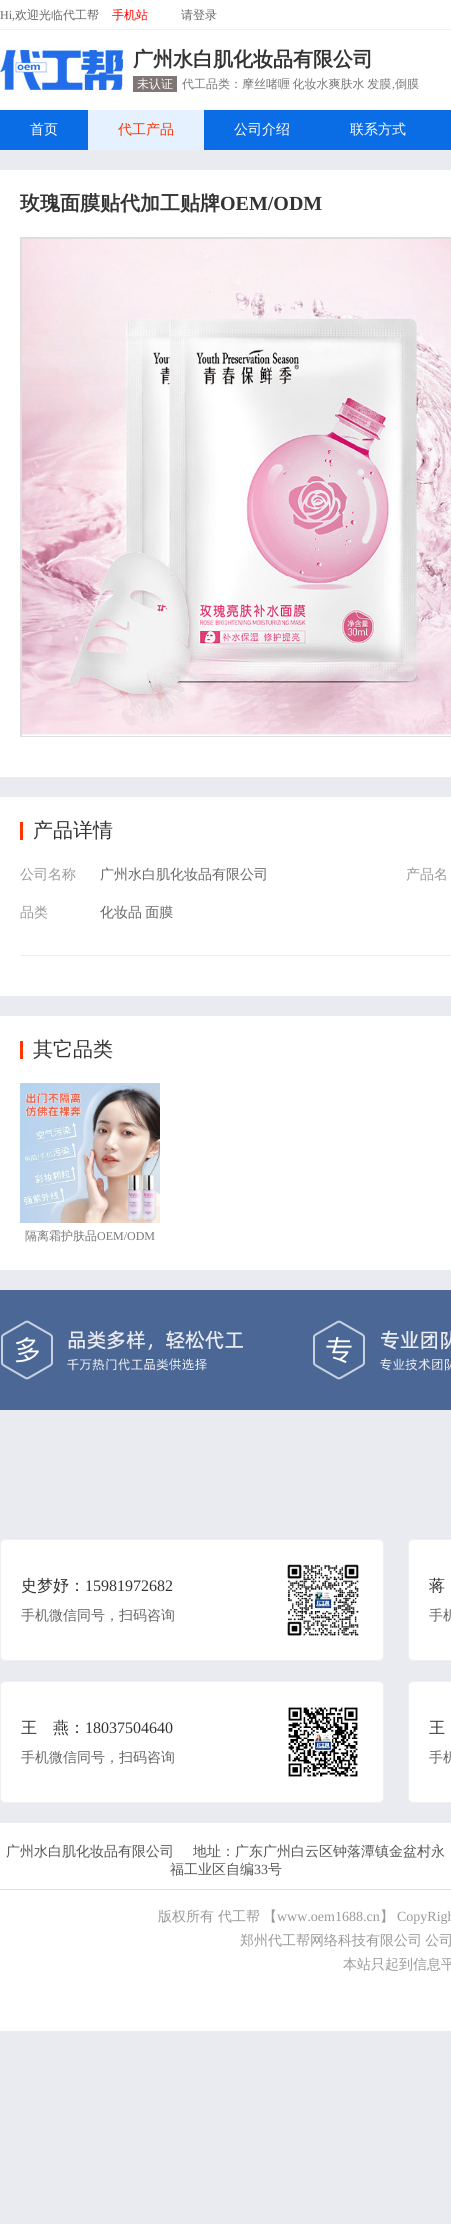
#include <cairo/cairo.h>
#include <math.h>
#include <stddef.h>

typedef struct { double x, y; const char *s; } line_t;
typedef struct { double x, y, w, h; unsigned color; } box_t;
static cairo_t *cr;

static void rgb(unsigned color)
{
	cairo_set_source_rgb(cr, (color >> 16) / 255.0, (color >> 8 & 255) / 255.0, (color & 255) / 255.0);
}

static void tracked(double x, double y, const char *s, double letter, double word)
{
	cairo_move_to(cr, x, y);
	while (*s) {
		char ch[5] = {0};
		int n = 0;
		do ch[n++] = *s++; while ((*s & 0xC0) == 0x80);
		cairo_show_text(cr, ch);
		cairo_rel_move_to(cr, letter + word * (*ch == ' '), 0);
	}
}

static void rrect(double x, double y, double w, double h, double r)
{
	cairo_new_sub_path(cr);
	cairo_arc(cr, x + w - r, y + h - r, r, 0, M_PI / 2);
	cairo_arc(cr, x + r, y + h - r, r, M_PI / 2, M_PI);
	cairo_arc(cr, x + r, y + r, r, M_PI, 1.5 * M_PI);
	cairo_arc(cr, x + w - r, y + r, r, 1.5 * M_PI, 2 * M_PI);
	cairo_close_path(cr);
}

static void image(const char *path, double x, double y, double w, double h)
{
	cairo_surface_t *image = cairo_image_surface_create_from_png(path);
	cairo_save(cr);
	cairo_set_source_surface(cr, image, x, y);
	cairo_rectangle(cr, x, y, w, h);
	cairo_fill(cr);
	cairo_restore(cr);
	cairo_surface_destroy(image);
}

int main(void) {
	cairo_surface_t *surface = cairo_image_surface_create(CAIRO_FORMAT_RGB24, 451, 2224);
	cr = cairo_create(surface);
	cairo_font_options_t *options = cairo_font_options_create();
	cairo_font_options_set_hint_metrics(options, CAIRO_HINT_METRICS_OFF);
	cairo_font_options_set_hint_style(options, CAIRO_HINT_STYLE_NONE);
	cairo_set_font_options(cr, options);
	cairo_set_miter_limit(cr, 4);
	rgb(0xeaebf0);
	cairo_paint(cr);
	{
		static const box_t items[] = {
			{0, 0, 451, 29, 0xffffff},
			{0, 29, 451, 1, 0xf0f0f0},
			{0, 30, 451, 80, 0xffffff},
		};
		for (size_t i = 0; i < sizeof items / sizeof *items; i++) {
			rgb(items[i].color);
			cairo_rectangle(cr, items[i].x, items[i].y, items[i].w, items[i].h);
			cairo_fill(cr);
		}
	}
	image("img/1.png", 0, 46, 123, 48);
	cairo_rectangle(cr, 133.5, 76.5, 43, 15);
	rgb(0x807673);
	cairo_set_line_width(cr, 1);
	cairo_stroke(cr);
	{
		static const box_t items[] = {
			{134, 77, 42, 14, 0x807673},
			{0, 110, 451, 40, 0x0b6de6},
			{88, 110, 116, 40, 0xe5f1ff},
			{0, 170, 451, 607, 0xffffff},
		};
		for (size_t i = 0; i < sizeof items / sizeof *items; i++) {
			rgb(items[i].color);
			cairo_rectangle(cr, items[i].x, items[i].y, items[i].w, items[i].h);
			cairo_fill(cr);
		}
	}
	cairo_rectangle(cr, 20.5, 237.5, 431, 499);
	rgb(0xdedede);
	cairo_stroke(cr);
	cairo_save(cr);
	cairo_rectangle(cr, 21, 238, 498, 498);
	cairo_clip(cr);
	cairo_rectangle(cr, 21.5, 238.5, 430, 499);
	cairo_stroke(cr);
	cairo_restore(cr);
	image("img/2.png", 22, 239, 429, 496);
	{
		static const box_t items[] = {
			{0, 797, 451, 199, 0xffffff},
			{20, 822, 3, 18, 0xff3600},
			{20, 955, 431, 1, 0xeeeeee},
			{0, 1016, 451, 254, 0xffffff},
			{20, 1041, 3, 18, 0xff3600},
		};
		for (size_t i = 0; i < sizeof items / sizeof *items; i++) {
			rgb(items[i].color);
			cairo_rectangle(cr, items[i].x, items[i].y, items[i].w, items[i].h);
			cairo_fill(cr);
		}
	}
	image("img/3.png", 20, 1083, 140, 140);
	rgb(0x4b6796);
	cairo_rectangle(cr, 0, 1290, 451, 120);
	cairo_fill(cr);
	image("img/4.png", 1, 1320, 242, 60);
	image("img/5.png", 313, 1320, 138, 60);
	rgb(0xffffff);
	rrect(0.5, 1539.5, 383, 121, 4.5);
	cairo_fill_preserve(cr);
	rgb(0xf0f0f0);
	cairo_stroke(cr);
	image("img/6.png", 287, 1564, 72, 72);
	rgb(0xffffff);
	rrect(408.5, 1539.5, 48, 121, 4.5);
	cairo_fill_preserve(cr);
	rgb(0xf0f0f0);
	cairo_stroke(cr);
	rgb(0xffffff);
	rrect(0.5, 1681.5, 383, 121, 4.5);
	cairo_fill_preserve(cr);
	rgb(0xf0f0f0);
	cairo_stroke(cr);
	image("img/7.png", 288, 1707, 70, 70);
	rgb(0xffffff);
	rrect(408.5, 1681.5, 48, 121, 4.5);
	cairo_fill_preserve(cr);
	rgb(0xf0f0f0);
	cairo_stroke(cr);
	rgb(0xffffff);
	cairo_rectangle(cr, 0, 1823, 451, 208);
	cairo_fill(cr);
	rgb(0xe1e1e1);
	cairo_rectangle(cr, 0, 1889, 451, 1);
	cairo_fill(cr);
	cairo_select_font_face(cr, "Liberation Serif", CAIRO_FONT_SLANT_NORMAL, CAIRO_FONT_WEIGHT_NORMAL);
	cairo_set_font_size(cr, 12);
	rgb(0x666666);
	cairo_move_to(cr, 0, 19);
	cairo_show_text(cr, "Hi,");
	cairo_select_font_face(cr, "WenQuanYi Zen Hei Medium", CAIRO_FONT_SLANT_NORMAL, CAIRO_FONT_WEIGHT_NORMAL);
	cairo_move_to(cr, 15, 19);
	cairo_show_text(cr, "欢迎光临代工帮");
	rgb(0xff0000);
	cairo_move_to(cr, 112, 19);
	cairo_show_text(cr, "手机站");
	rgb(0x666666);
	cairo_move_to(cr, 181, 19);
	cairo_show_text(cr, "请登录");
	cairo_select_font_face(cr, "WenQuanYi Zen Hei", CAIRO_FONT_SLANT_NORMAL, CAIRO_FONT_WEIGHT_BOLD);
	cairo_set_font_size(cr, 20);
	rgb(0x333333);
	cairo_move_to(cr, 133, 66);
	cairo_show_text(cr, "广州水白肌化妆品有限公司");
	cairo_select_font_face(cr, "WenQuanYi Zen Hei Medium", CAIRO_FONT_SLANT_NORMAL, CAIRO_FONT_WEIGHT_NORMAL);
	cairo_set_font_size(cr, 12);
	rgb(0xffffff);
	cairo_move_to(cr, 137, 88);
	cairo_show_text(cr, "未认证");
	rgb(0x777777);
	tracked(182, 88, "代工品类：摩丝啫喱 化妆水爽肤水 发膜", 0, -1);
	cairo_select_font_face(cr, "Liberation Serif", CAIRO_FONT_SLANT_NORMAL, CAIRO_FONT_WEIGHT_NORMAL);
	cairo_move_to(cr, 392, 88);
	cairo_show_text(cr, ",");
	cairo_select_font_face(cr, "WenQuanYi Zen Hei Medium", CAIRO_FONT_SLANT_NORMAL, CAIRO_FONT_WEIGHT_NORMAL);
	cairo_move_to(cr, 395, 88);
	cairo_show_text(cr, "倒膜");
	cairo_set_font_size(cr, 14);
	rgb(0xffffff);
	cairo_move_to(cr, 30, 134);
	cairo_show_text(cr, "首页");
	rgb(0xff3600);
	cairo_move_to(cr, 118, 134);
	cairo_show_text(cr, "代工产品");
	rgb(0xffffff);
	cairo_move_to(cr, 234, 134);
	cairo_show_text(cr, "公司介绍");
	cairo_move_to(cr, 350, 134);
	cairo_show_text(cr, "联系方式");
	cairo_select_font_face(cr, "WenQuanYi Zen Hei", CAIRO_FONT_SLANT_NORMAL, CAIRO_FONT_WEIGHT_BOLD);
	cairo_set_font_size(cr, 20);
	rgb(0x333333);
	cairo_move_to(cr, 20, 210);
	cairo_show_text(cr, "玫瑰面膜贴代加工贴牌");
	cairo_select_font_face(cr, "Liberation Serif", CAIRO_FONT_SLANT_NORMAL, CAIRO_FONT_WEIGHT_BOLD);
	cairo_move_to(cr, 220, 210);
	cairo_show_text(cr, "OEM/ODM");
	cairo_select_font_face(cr, "WenQuanYi Zen Hei Medium", CAIRO_FONT_SLANT_NORMAL, CAIRO_FONT_WEIGHT_NORMAL);
	cairo_move_to(cr, 33, 837);
	cairo_show_text(cr, "产品详情");
	cairo_set_font_size(cr, 14);
	rgb(0x999999);
	cairo_move_to(cr, 20, 879);
	cairo_show_text(cr, "公司名称");
	rgb(0x666666);
	cairo_move_to(cr, 100, 879);
	cairo_show_text(cr, "广州水白肌化妆品有限公司");
	rgb(0x999999);
	cairo_move_to(cr, 406, 879);
	cairo_show_text(cr, "产品名");
	cairo_move_to(cr, 20, 917);
	cairo_show_text(cr, "品类");
	rgb(0x666666);
	tracked(100, 917, "化妆品 面膜", 0, -1);
	cairo_set_font_size(cr, 20);
	rgb(0x333333);
	cairo_move_to(cr, 33, 1056);
	cairo_show_text(cr, "其它品类");
	cairo_set_font_size(cr, 12);
	rgb(0x777777);
	cairo_move_to(cr, 25, 1240);
	cairo_show_text(cr, "隔离霜护肤品");
	cairo_select_font_face(cr, "Liberation Serif", CAIRO_FONT_SLANT_NORMAL, CAIRO_FONT_WEIGHT_NORMAL);
	cairo_move_to(cr, 97, 1240);
	cairo_show_text(cr, "OEM/ODM");
	cairo_select_font_face(cr, "WenQuanYi Zen Hei Medium", CAIRO_FONT_SLANT_NORMAL, CAIRO_FONT_WEIGHT_NORMAL);
	cairo_set_font_size(cr, 16);
	rgb(0x333333);
	cairo_move_to(cr, 21, 1591);
	cairo_show_text(cr, "史梦妤：");
	cairo_select_font_face(cr, "Liberation Serif", CAIRO_FONT_SLANT_NORMAL, CAIRO_FONT_WEIGHT_NORMAL);
	cairo_move_to(cr, 85, 1591);
	cairo_show_text(cr, "15981972682");
	cairo_select_font_face(cr, "WenQuanYi Zen Hei Medium", CAIRO_FONT_SLANT_NORMAL, CAIRO_FONT_WEIGHT_NORMAL);
	cairo_set_font_size(cr, 14);
	rgb(0x666666);
	cairo_move_to(cr, 21, 1620);
	cairo_show_text(cr, "手机微信同号，扫码咨询");
	cairo_set_font_size(cr, 16);
	rgb(0x333333);
	cairo_move_to(cr, 429, 1591);
	cairo_show_text(cr, "蒋");
	cairo_set_font_size(cr, 14);
	rgb(0x666666);
	cairo_move_to(cr, 429, 1620);
	cairo_show_text(cr, "手机");
	cairo_set_font_size(cr, 16);
	rgb(0x333333);
	cairo_move_to(cr, 21, 1733);
	cairo_show_text(cr, "王　燕：");
	cairo_select_font_face(cr, "Liberation Serif", CAIRO_FONT_SLANT_NORMAL, CAIRO_FONT_WEIGHT_NORMAL);
	cairo_move_to(cr, 85, 1733);
	cairo_show_text(cr, "18037504640");
	cairo_select_font_face(cr, "WenQuanYi Zen Hei Medium", CAIRO_FONT_SLANT_NORMAL, CAIRO_FONT_WEIGHT_NORMAL);
	cairo_set_font_size(cr, 14);
	rgb(0x666666);
	cairo_move_to(cr, 21, 1762);
	cairo_show_text(cr, "手机微信同号，扫码咨询");
	cairo_set_font_size(cr, 16);
	rgb(0x333333);
	cairo_move_to(cr, 429, 1733);
	cairo_show_text(cr, "王");
	cairo_set_font_size(cr, 14);
	rgb(0x666666);
	cairo_move_to(cr, 429, 1762);
	cairo_show_text(cr, "手机");
	rgb(0x555555);
	{
		static const line_t items[] = {
			{6, 1856, "广州水白肌化妆品有限公司"},
			{193, 1856, "地址：广东广州白云区钟落潭镇金盆村永"},
			{170, 1874, "福工业区自编"},
		};
		for (size_t i = 0; i < sizeof items / sizeof *items; i++) {
			cairo_move_to(cr, items[i].x, items[i].y);
			cairo_show_text(cr, items[i].s);
		}
	}
	cairo_select_font_face(cr, "Liberation Serif", CAIRO_FONT_SLANT_NORMAL, CAIRO_FONT_WEIGHT_NORMAL);
	cairo_move_to(cr, 254, 1874);
	cairo_show_text(cr, "33");
	cairo_select_font_face(cr, "WenQuanYi Zen Hei Medium", CAIRO_FONT_SLANT_NORMAL, CAIRO_FONT_WEIGHT_NORMAL);
	cairo_move_to(cr, 268, 1874);
	cairo_show_text(cr, "号");
	rgb(0x999999);
	{
		static const line_t items[] = {
			{158, 1921, "版权所有"},
			{218, 1921, "代工帮"},
			{263, 1921, "【"},
		};
		for (size_t i = 0; i < sizeof items / sizeof *items; i++) {
			cairo_move_to(cr, items[i].x, items[i].y);
			cairo_show_text(cr, items[i].s);
		}
	}
	cairo_select_font_face(cr, "Liberation Serif", CAIRO_FONT_SLANT_NORMAL, CAIRO_FONT_WEIGHT_NORMAL);
	cairo_move_to(cr, 277, 1921);
	cairo_show_text(cr, "www.oem1688.cn");
	cairo_select_font_face(cr, "WenQuanYi Zen Hei Medium", CAIRO_FONT_SLANT_NORMAL, CAIRO_FONT_WEIGHT_NORMAL);
	cairo_move_to(cr, 380, 1921);
	cairo_show_text(cr, "】");
	cairo_select_font_face(cr, "Liberation Serif", CAIRO_FONT_SLANT_NORMAL, CAIRO_FONT_WEIGHT_NORMAL);
	cairo_move_to(cr, 397, 1921);
	cairo_show_text(cr, "CopyRigh");
	cairo_select_font_face(cr, "WenQuanYi Zen Hei Medium", CAIRO_FONT_SLANT_NORMAL, CAIRO_FONT_WEIGHT_NORMAL);
	tracked(240, 1945, "郑州代工帮网络科技有限公司 公司", 0, -1);
	cairo_move_to(cr, 343, 1969);
	cairo_show_text(cr, "本站只起到信息平");
	cairo_surface_write_to_png(surface, "page.png");
	cairo_font_options_destroy(options);
	cairo_destroy(cr);
	cairo_surface_destroy(surface);
	return 0;
}
